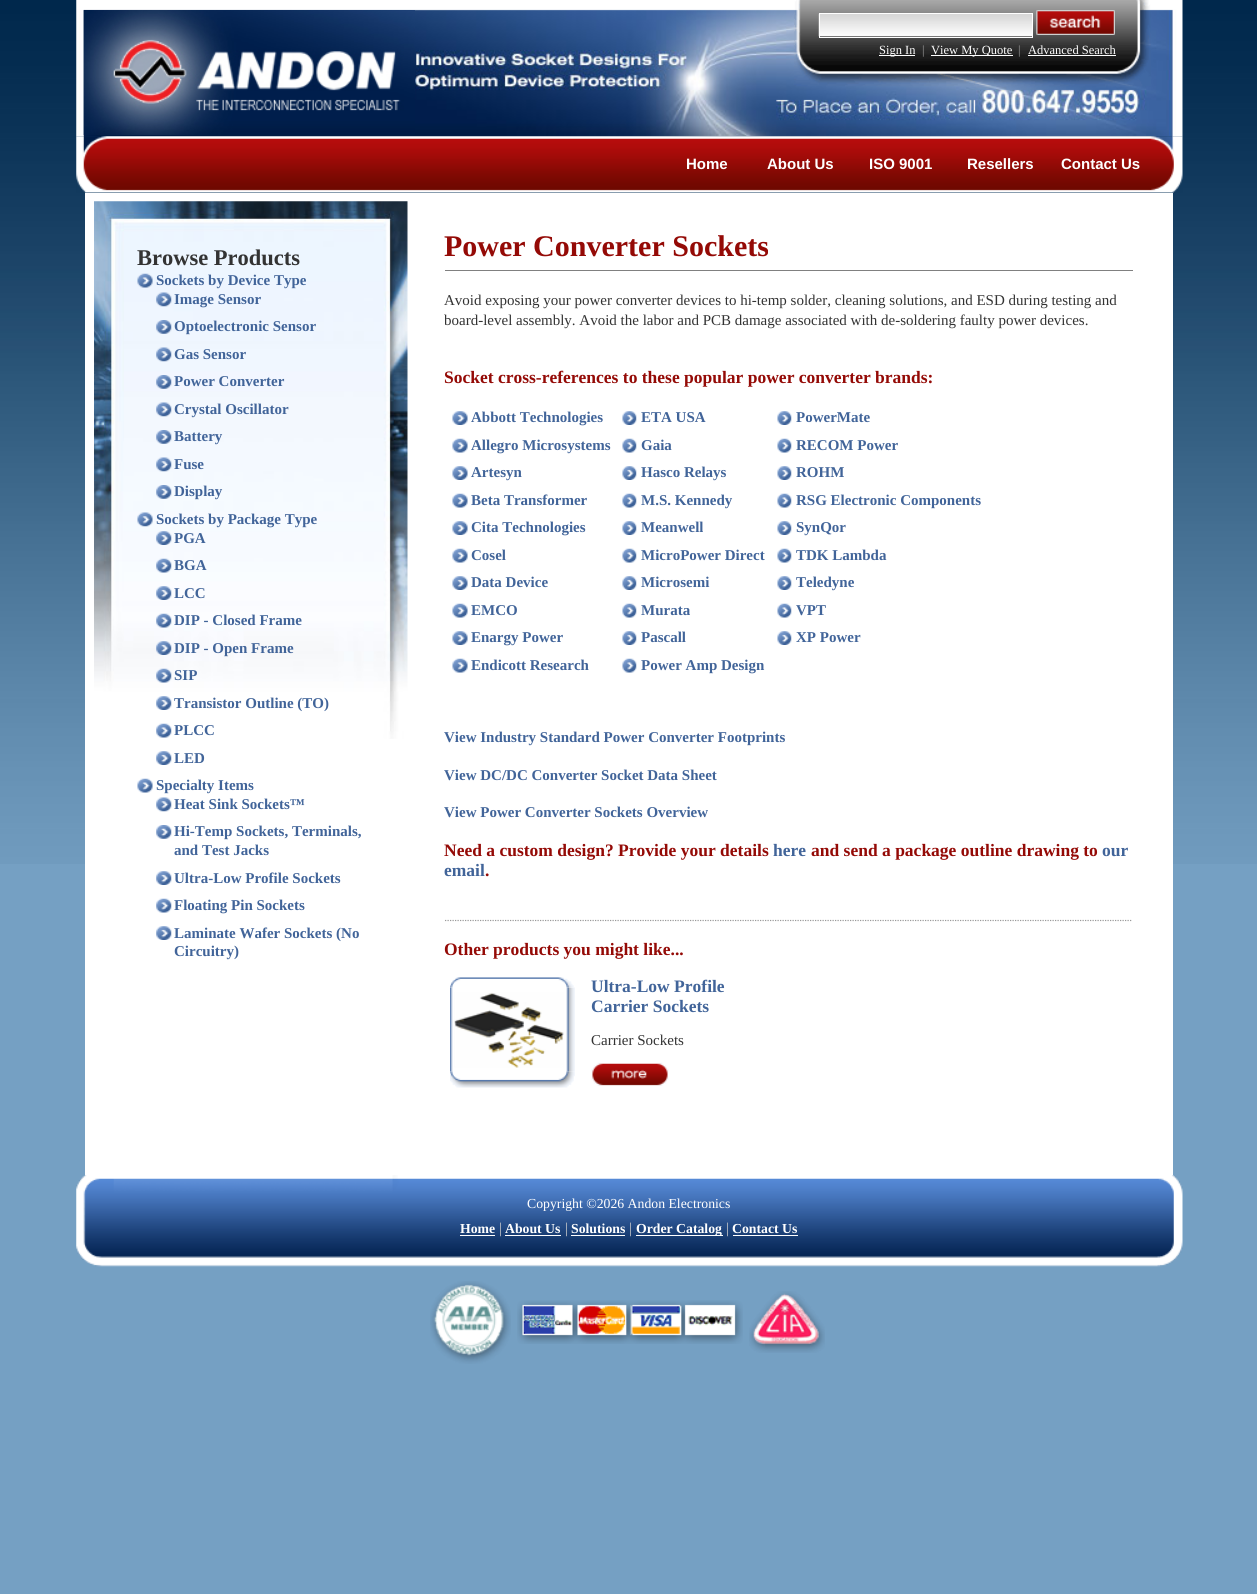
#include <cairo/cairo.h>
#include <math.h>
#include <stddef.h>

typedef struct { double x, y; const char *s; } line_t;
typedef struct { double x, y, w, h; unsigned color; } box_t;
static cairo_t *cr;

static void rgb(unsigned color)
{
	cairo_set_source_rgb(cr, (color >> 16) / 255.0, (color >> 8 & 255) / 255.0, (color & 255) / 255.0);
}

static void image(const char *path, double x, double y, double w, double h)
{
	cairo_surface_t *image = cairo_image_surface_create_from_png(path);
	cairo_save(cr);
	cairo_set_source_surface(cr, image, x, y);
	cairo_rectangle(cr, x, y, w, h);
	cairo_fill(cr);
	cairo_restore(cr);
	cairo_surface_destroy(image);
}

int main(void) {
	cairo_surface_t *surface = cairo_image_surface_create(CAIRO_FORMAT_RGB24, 1257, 1594);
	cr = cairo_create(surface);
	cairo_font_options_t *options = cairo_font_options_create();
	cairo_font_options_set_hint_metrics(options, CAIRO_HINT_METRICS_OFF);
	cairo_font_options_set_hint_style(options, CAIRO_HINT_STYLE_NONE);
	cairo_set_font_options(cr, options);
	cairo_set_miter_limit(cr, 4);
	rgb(0x75a0c3);
	cairo_paint(cr);
	image("img/1.png", 0, 0, 1257, 864);
	image("img/2.png", 76, 0, 1107, 137);
	image("img/3.png", 83, 10, 332, 125);
	image("img/4.png", 794, 0, 357, 87);
	image("img/5.png", 818, 13, 214, 24);
	cairo_rectangle(cr, 819.5, 13.5, 213, 24);
	rgb(0xffffff);
	cairo_set_line_width(cr, 1);
	cairo_stroke(cr);
	image("img/6.png", 1036, 10, 79, 25);
	{
		static const box_t items[] = {
			{879, 55, 36, 1, 0xffffff},
			{931, 55, 82, 1, 0xffffff},
			{1028, 55, 88, 1, 0xffffff},
		};
		for (size_t i = 0; i < sizeof items / sizeof *items; i++) {
			rgb(items[i].color);
			cairo_rectangle(cr, items[i].x, items[i].y, items[i].w, items[i].h);
			cairo_fill(cr);
		}
	}
	image("img/7.png", 76, 136, 1107, 57);
	cairo_rectangle(cr, 85, 193, 1088, 982);
	cairo_fill(cr);
	image("img/8.png", 94, 201, 314, 538);
	image("img/9.png", 137, 273, 16, 15);
	image("img/10.png", 156, 292, 16, 15);
	image("img/11.png", 156, 320, 16, 14);
	image("img/12.png", 156, 347, 16, 15);
	image("img/13.png", 156, 375, 16, 14);
	image("img/14.png", 156, 402, 16, 15);
	image("img/15.png", 156, 430, 16, 14);
	image("img/16.png", 156, 457, 16, 15);
	image("img/17.png", 156, 485, 16, 14);
	image("img/18.png", 137, 512, 16, 15);
	image("img/19.png", 156, 531, 16, 14);
	image("img/20.png", 156, 558, 16, 15);
	image("img/21.png", 156, 586, 16, 14);
	image("img/22.png", 156, 613, 16, 15);
	image("img/23.png", 156, 641, 16, 14);
	image("img/24.png", 156, 668, 16, 15);
	image("img/25.png", 156, 696, 16, 14);
	image("img/26.png", 156, 723, 16, 15);
	image("img/25.png", 156, 751, 16, 14);
	image("img/27.png", 137, 778, 16, 15);
	image("img/28.png", 156, 797, 16, 15);
	image("img/29.png", 156, 825, 16, 14);
	image("img/25.png", 156, 871, 16, 14);
	image("img/26.png", 156, 898, 16, 15);
	image("img/25.png", 156, 926, 16, 14);
	rgb(0x808080);
	cairo_rectangle(cr, 445, 270, 688, 1);
	cairo_fill(cr);
	image("img/30.png", 452, 411, 16, 14);
	image("img/31.png", 452, 438, 16, 15);
	image("img/30.png", 452, 466, 16, 14);
	image("img/31.png", 452, 493, 16, 15);
	image("img/30.png", 452, 521, 16, 14);
	image("img/31.png", 452, 548, 16, 15);
	image("img/30.png", 452, 576, 16, 14);
	image("img/31.png", 452, 603, 16, 15);
	image("img/30.png", 452, 631, 16, 14);
	image("img/31.png", 452, 658, 16, 15);
	image("img/32.png", 622, 411, 15, 14);
	image("img/33.png", 622, 438, 15, 15);
	image("img/32.png", 622, 466, 15, 14);
	image("img/33.png", 622, 493, 15, 15);
	image("img/32.png", 622, 521, 15, 14);
	image("img/33.png", 622, 548, 15, 15);
	image("img/32.png", 622, 576, 15, 14);
	image("img/33.png", 622, 603, 15, 15);
	image("img/32.png", 622, 631, 15, 14);
	image("img/33.png", 622, 658, 15, 15);
	image("img/34.png", 777, 411, 15, 14);
	image("img/35.png", 777, 438, 15, 15);
	image("img/34.png", 777, 466, 15, 14);
	image("img/35.png", 777, 493, 15, 15);
	image("img/34.png", 777, 521, 15, 14);
	image("img/35.png", 777, 548, 15, 15);
	image("img/34.png", 777, 576, 15, 14);
	image("img/35.png", 777, 603, 15, 15);
	image("img/34.png", 777, 631, 15, 14);
	cairo_new_path(cr);
	cairo_move_to(cr, 445, 920.5);
	cairo_line_to(cr, 1132.5, 920.5);
	rgb(0x999999);
	cairo_set_line_width(cr, 1.2);
	cairo_set_dash(cr, (double[]){1.25, 1.25}, 2, 0);
	cairo_stroke(cr);
	image("img/37.png", 450, 987, 125, 85);
	image("img/36.png", 450, 977, 124, 11);
	image("img/38.png", 454, 992, 110, 76);
	image("img/39.png", 450, 1071, 125, 17);
	image("img/40.png", 591, 1062, 78, 24);
	image("img/41.png", 76, 1175, 1107, 92);
	{
		static const box_t items[] = {
			{460, 1235, 35, 1, 0xffffff},
			{505, 1235, 56, 1, 0xffffff},
			{571, 1235, 54, 1, 0xffffff},
			{636, 1235, 87, 1, 0xffffff},
			{733, 1235, 65, 1, 0xffffff},
		};
		for (size_t i = 0; i < sizeof items / sizeof *items; i++) {
			rgb(items[i].color);
			cairo_rectangle(cr, items[i].x, items[i].y, items[i].w, items[i].h);
			cairo_fill(cr);
		}
	}
	image("img/42.png", 430, 1281, 81, 83);
	image("img/43.png", 517, 1300, 226, 44);
	image("img/44.png", 749, 1291, 76, 62);
	cairo_select_font_face(cr, "Liberation Serif", CAIRO_FONT_SLANT_NORMAL, CAIRO_FONT_WEIGHT_NORMAL);
	cairo_set_font_size(cr, 12.5);
	cairo_move_to(cr, 879, 54);
	cairo_show_text(cr, "Sign In");
	rgb(0x999999);
	cairo_move_to(cr, 922, 54);
	cairo_show_text(cr, "|");
	rgb(0xffffff);
	cairo_move_to(cr, 931, 54);
	cairo_show_text(cr, "View My Quote");
	rgb(0x999999);
	cairo_move_to(cr, 1018, 54);
	cairo_show_text(cr, "|");
	rgb(0xffffff);
	cairo_move_to(cr, 1028, 54);
	cairo_show_text(cr, "Advanced Search");
	cairo_select_font_face(cr, "Liberation Sans", CAIRO_FONT_SLANT_NORMAL, CAIRO_FONT_WEIGHT_BOLD);
	cairo_set_font_size(cr, 15);
	{
		static const line_t items[] = {
			{686, 169, "Home"},
			{767, 169, "About Us"},
			{869, 169, "ISO 9001"},
			{967, 169, "Resellers"},
			{1061, 169, "Contact Us"},
		};
		for (size_t i = 0; i < sizeof items / sizeof *items; i++) {
			cairo_move_to(cr, items[i].x, items[i].y);
			cairo_show_text(cr, items[i].s);
		}
	}
	cairo_select_font_face(cr, "Liberation Serif", CAIRO_FONT_SLANT_NORMAL, CAIRO_FONT_WEIGHT_BOLD);
	cairo_set_font_size(cr, 22.5);
	rgb(0x333333);
	cairo_move_to(cr, 137, 265);
	cairo_show_text(cr, "Browse Products");
	cairo_set_font_size(cr, 15);
	rgb(0x416499);
	{
		static const line_t items[] = {
			{156, 285, "Sockets by Device Type"},
			{174, 304, "Image Sensor"},
			{174, 331, "Optoelectronic Sensor"},
			{174, 359, "Gas Sensor"},
			{174, 386, "Power Converter"},
			{174, 414, "Crystal Oscillator"},
			{174, 441, "Battery"},
			{174, 469, "Fuse"},
			{174, 496, "Display"},
			{156, 524, "Sockets by Package Type"},
			{174, 543, "PGA"},
			{174, 570, "BGA"},
			{174, 598, "LCC"},
			{174, 625, "DIP - Closed Frame"},
			{174, 653, "DIP - Open Frame"},
			{174, 680, "SIP"},
			{174, 708, "Transistor Outline (TO)"},
			{174, 735, "PLCC"},
			{174, 763, "LED"},
			{156, 790, "Specialty Items"},
			{174, 809, "Heat Sink Sockets™"},
			{174, 836, "Hi-Temp Sockets, Terminals,"},
			{174, 855, "and Test Jacks"},
			{174, 883, "Ultra-Low Profile Sockets"},
			{174, 910, "Floating Pin Sockets"},
			{174, 938, "Laminate Wafer Sockets (No"},
			{174, 956, "Circuitry)"},
		};
		for (size_t i = 0; i < sizeof items / sizeof *items; i++) {
			cairo_move_to(cr, items[i].x, items[i].y);
			cairo_show_text(cr, items[i].s);
		}
	}
	cairo_set_font_size(cr, 30);
	rgb(0x940a06);
	cairo_move_to(cr, 444, 256);
	cairo_show_text(cr, "Power Converter Sockets");
	cairo_select_font_face(cr, "Liberation Serif", CAIRO_FONT_SLANT_NORMAL, CAIRO_FONT_WEIGHT_NORMAL);
	cairo_set_font_size(cr, 15);
	rgb(0x333333);
	cairo_move_to(cr, 444, 305);
	cairo_show_text(cr, "Avoid exposing your power converter devices to hi-temp solder, cleaning solutions, and ESD during testing and");
	cairo_move_to(cr, 444, 325);
	cairo_show_text(cr, "board-level assembly. Avoid the labor and PCB damage associated with de-soldering faulty power devices.");
	cairo_select_font_face(cr, "Liberation Serif", CAIRO_FONT_SLANT_NORMAL, CAIRO_FONT_WEIGHT_BOLD);
	cairo_set_font_size(cr, 17.5);
	rgb(0x940a06);
	cairo_move_to(cr, 444, 383);
	cairo_show_text(cr, "Socket cross-references to these popular power converter brands:");
	cairo_set_font_size(cr, 15);
	rgb(0x416499);
	{
		static const line_t items[] = {
			{471, 422, "Abbott Technologies"},
			{471, 450, "Allegro Microsystems"},
			{471, 477, "Artesyn"},
			{471, 505, "Beta Transformer"},
			{471, 532, "Cita Technologies"},
			{471, 560, "Cosel"},
			{471, 587, "Data Device"},
			{471, 615, "EMCO"},
			{471, 642, "Enargy Power"},
			{471, 670, "Endicott Research"},
			{641, 422, "ETA USA"},
			{641, 450, "Gaia"},
			{641, 477, "Hasco Relays"},
			{641, 505, "M.S. Kennedy"},
			{641, 532, "Meanwell"},
			{641, 560, "MicroPower Direct"},
			{641, 587, "Microsemi"},
			{641, 615, "Murata"},
			{641, 642, "Pascall"},
			{641, 670, "Power Amp Design"},
			{796, 422, "PowerMate"},
			{796, 450, "RECOM Power"},
			{796, 477, "ROHM"},
			{796, 505, "RSG Electronic Components"},
			{796, 532, "SynQor"},
			{796, 560, "TDK Lambda"},
			{796, 587, "Teledyne"},
			{796, 615, "VPT"},
			{796, 642, "XP Power"},
			{444, 742, "View Industry Standard Power Converter Footprints"},
			{444, 780, "View DC/DC Converter Socket Data Sheet"},
			{444, 817, "View Power Converter Sockets Overview"},
		};
		for (size_t i = 0; i < sizeof items / sizeof *items; i++) {
			cairo_move_to(cr, items[i].x, items[i].y);
			cairo_show_text(cr, items[i].s);
		}
	}
	cairo_set_font_size(cr, 17.5);
	rgb(0x940a06);
	cairo_move_to(cr, 444, 856);
	cairo_show_text(cr, "Need a custom design? Provide your details");
	rgb(0x416499);
	cairo_move_to(cr, 773, 856);
	cairo_show_text(cr, "here");
	rgb(0x940a06);
	cairo_move_to(cr, 811, 856);
	cairo_show_text(cr, "and send a package outline drawing to");
	rgb(0x416499);
	cairo_move_to(cr, 1102, 856);
	cairo_show_text(cr, "our");
	cairo_move_to(cr, 444, 876);
	cairo_show_text(cr, "email");
	rgb(0x940a06);
	cairo_move_to(cr, 485, 876);
	cairo_show_text(cr, ".");
	cairo_move_to(cr, 444, 955);
	cairo_show_text(cr, "Other products you might like...");
	rgb(0x416499);
	cairo_move_to(cr, 591, 992);
	cairo_show_text(cr, "Ultra-Low Profile");
	cairo_move_to(cr, 591, 1012);
	cairo_show_text(cr, "Carrier Sockets");
	cairo_select_font_face(cr, "Liberation Serif", CAIRO_FONT_SLANT_NORMAL, CAIRO_FONT_WEIGHT_NORMAL);
	cairo_set_font_size(cr, 15);
	rgb(0x333333);
	cairo_move_to(cr, 591, 1045);
	cairo_show_text(cr, "Carrier Sockets");
	cairo_set_font_size(cr, 13.75);
	rgb(0xffffff);
	cairo_move_to(cr, 527, 1208);
	cairo_show_text(cr, "Copyright ©2026 Andon Electronics");
	cairo_select_font_face(cr, "Liberation Serif", CAIRO_FONT_SLANT_NORMAL, CAIRO_FONT_WEIGHT_BOLD);
	cairo_move_to(cr, 460, 1233);
	cairo_show_text(cr, "Home");
	cairo_select_font_face(cr, "Liberation Serif", CAIRO_FONT_SLANT_NORMAL, CAIRO_FONT_WEIGHT_NORMAL);
	cairo_set_font_size(cr, 15);
	rgb(0xcccccc);
	cairo_move_to(cr, 499, 1233);
	cairo_show_text(cr, "|");
	cairo_select_font_face(cr, "Liberation Serif", CAIRO_FONT_SLANT_NORMAL, CAIRO_FONT_WEIGHT_BOLD);
	cairo_set_font_size(cr, 13.75);
	rgb(0xffffff);
	cairo_move_to(cr, 505, 1233);
	cairo_show_text(cr, "About Us");
	cairo_select_font_face(cr, "Liberation Serif", CAIRO_FONT_SLANT_NORMAL, CAIRO_FONT_WEIGHT_NORMAL);
	cairo_set_font_size(cr, 15);
	rgb(0xcccccc);
	cairo_move_to(cr, 565, 1233);
	cairo_show_text(cr, "|");
	cairo_select_font_face(cr, "Liberation Serif", CAIRO_FONT_SLANT_NORMAL, CAIRO_FONT_WEIGHT_BOLD);
	cairo_set_font_size(cr, 13.75);
	rgb(0xffffff);
	cairo_move_to(cr, 571, 1233);
	cairo_show_text(cr, "Solutions");
	cairo_select_font_face(cr, "Liberation Serif", CAIRO_FONT_SLANT_NORMAL, CAIRO_FONT_WEIGHT_NORMAL);
	cairo_set_font_size(cr, 15);
	rgb(0xcccccc);
	cairo_move_to(cr, 629, 1233);
	cairo_show_text(cr, "|");
	cairo_select_font_face(cr, "Liberation Serif", CAIRO_FONT_SLANT_NORMAL, CAIRO_FONT_WEIGHT_BOLD);
	cairo_set_font_size(cr, 13.75);
	rgb(0xffffff);
	cairo_move_to(cr, 636, 1233);
	cairo_show_text(cr, "Order Catalog");
	cairo_select_font_face(cr, "Liberation Serif", CAIRO_FONT_SLANT_NORMAL, CAIRO_FONT_WEIGHT_NORMAL);
	cairo_set_font_size(cr, 15);
	rgb(0xcccccc);
	cairo_move_to(cr, 726, 1233);
	cairo_show_text(cr, "|");
	cairo_select_font_face(cr, "Liberation Serif", CAIRO_FONT_SLANT_NORMAL, CAIRO_FONT_WEIGHT_BOLD);
	cairo_set_font_size(cr, 13.75);
	rgb(0xffffff);
	cairo_move_to(cr, 732, 1233);
	cairo_show_text(cr, "Contact Us");
	cairo_surface_write_to_png(surface, "page.png");
	cairo_font_options_destroy(options);
	cairo_destroy(cr);
	cairo_surface_destroy(surface);
	return 0;
}
